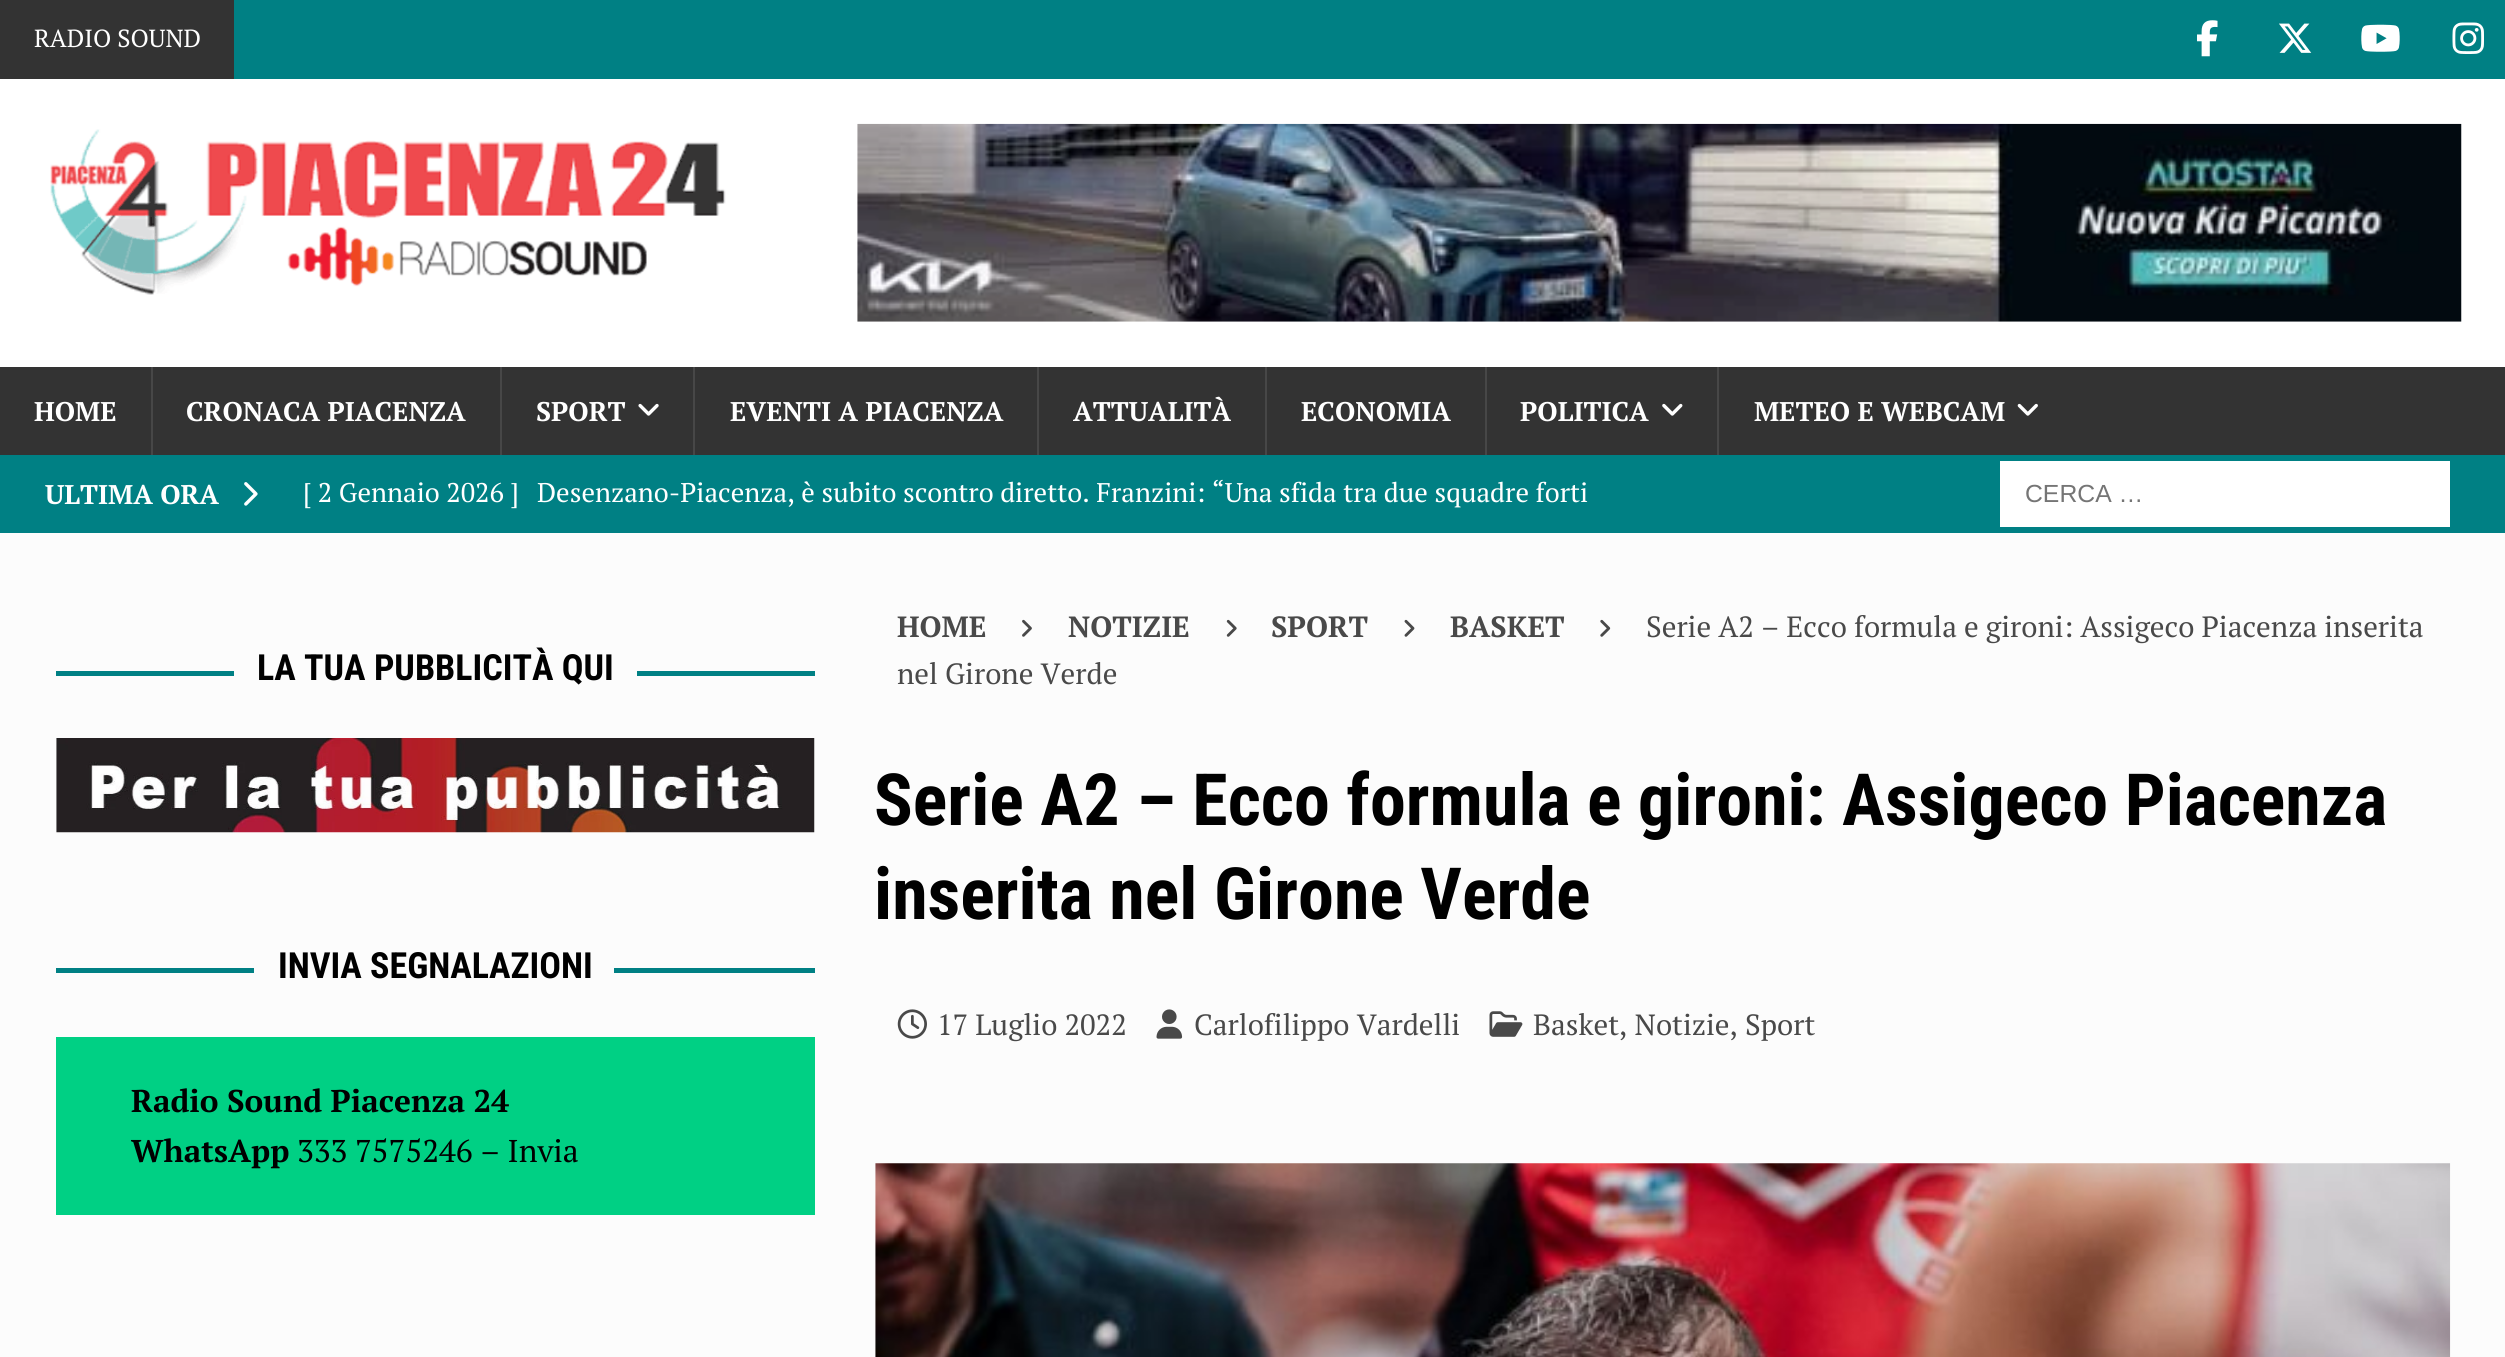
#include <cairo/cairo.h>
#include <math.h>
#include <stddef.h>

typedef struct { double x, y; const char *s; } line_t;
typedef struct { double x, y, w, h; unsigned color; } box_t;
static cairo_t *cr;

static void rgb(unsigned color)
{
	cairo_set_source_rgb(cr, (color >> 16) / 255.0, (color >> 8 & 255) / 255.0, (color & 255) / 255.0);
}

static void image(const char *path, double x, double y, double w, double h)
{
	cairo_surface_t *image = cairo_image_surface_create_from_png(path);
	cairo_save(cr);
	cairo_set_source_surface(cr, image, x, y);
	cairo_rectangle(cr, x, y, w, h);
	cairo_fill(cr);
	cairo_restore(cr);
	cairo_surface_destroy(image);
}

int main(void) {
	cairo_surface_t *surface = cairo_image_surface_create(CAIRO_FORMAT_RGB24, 2505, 1357);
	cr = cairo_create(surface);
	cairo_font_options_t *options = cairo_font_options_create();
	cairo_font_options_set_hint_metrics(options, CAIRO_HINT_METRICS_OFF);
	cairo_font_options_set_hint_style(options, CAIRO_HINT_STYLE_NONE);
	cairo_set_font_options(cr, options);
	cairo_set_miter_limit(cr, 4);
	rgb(0x008084);
	cairo_paint(cr);
	rgb(0x333333);
	cairo_rectangle(cr, 0, 0, 234, 79);
	cairo_fill(cr);
	image("img/1.png", 2197, 20, 21, 37);
	image("img/2.png", 2279, 23, 33, 30);
	image("img/3.png", 2361, 24, 39, 28);
	image("img/4.png", 2452, 22, 32, 32);
	rgb(0xffffff);
	cairo_rectangle(cr, 0, 79, 2505, 288);
	cairo_fill(cr);
	image("img/5.png", 50, 129, 676, 166);
	image("img/6.png", 857, 123, 1605, 199);
	{
		static const box_t items[] = {
			{0, 367, 2505, 88, 0x333333},
			{151, 367, 2, 88, 0x474747},
			{500, 367, 2, 88, 0x474747},
		};
		for (size_t i = 0; i < sizeof items / sizeof *items; i++) {
			rgb(items[i].color);
			cairo_rectangle(cr, items[i].x, items[i].y, items[i].w, items[i].h);
			cairo_fill(cr);
		}
	}
	image("img/7.png", 638, 403, 21, 13);
	{
		static const box_t items[] = {
			{693, 367, 2, 88, 0x474747},
			{1037, 367, 2, 88, 0x474747},
			{1265, 367, 2, 88, 0x474747},
			{1485, 367, 2, 88, 0x474747},
		};
		for (size_t i = 0; i < sizeof items / sizeof *items; i++) {
			rgb(items[i].color);
			cairo_rectangle(cr, items[i].x, items[i].y, items[i].w, items[i].h);
			cairo_fill(cr);
		}
	}
	image("img/8.png", 1662, 403, 21, 13);
	cairo_rectangle(cr, 1717, 367, 2, 88);
	cairo_fill(cr);
	image("img/9.png", 2017, 403, 21, 13);
	image("img/10.png", 244, 482, 14, 24);
	{
		static const box_t items[] = {
			{2000, 461, 450, 66, 0xffffff},
			{0, 533, 2505, 824, 0xfcfcfc},
			{56, 671, 759, 5, 0x008084},
			{234, 671, 403, 5, 0xfcfcfc},
		};
		for (size_t i = 0; i < sizeof items / sizeof *items; i++) {
			rgb(items[i].color);
			cairo_rectangle(cr, items[i].x, items[i].y, items[i].w, items[i].h);
			cairo_fill(cr);
		}
	}
	image("img/11.png", 56, 738, 759, 95);
	{
		static const box_t items[] = {
			{56, 968, 759, 5, 0x008084},
			{254, 968, 360, 5, 0xfcfcfc},
			{56, 1037, 759, 178, 0x00d084},
		};
		for (size_t i = 0; i < sizeof items / sizeof *items; i++) {
			rgb(items[i].color);
			cairo_rectangle(cr, items[i].x, items[i].y, items[i].w, items[i].h);
			cairo_fill(cr);
		}
	}
	image("img/12.png", 1022, 619, 10, 18);
	image("img/13.png", 1226, 619, 11, 18);
	image("img/14.png", 1404, 619, 11, 18);
	image("img/15.png", 1600, 619, 11, 18);
	image("img/16.png", 897, 1009, 30, 30);
	image("img/17.png", 1156, 1009, 27, 30);
	image("img/18.png", 1489, 1011, 34, 26);
	image("img/19.png", 875, 1163, 1576, 194);
	cairo_select_font_face(cr, "PT Serif", CAIRO_FONT_SLANT_NORMAL, CAIRO_FONT_WEIGHT_NORMAL);
	cairo_set_font_size(cr, 24.75);
	rgb(0xffffff);
	cairo_move_to(cr, 34, 47);
	cairo_show_text(cr, "RADIO SOUND");
	cairo_select_font_face(cr, "PT Serif", CAIRO_FONT_SLANT_NORMAL, CAIRO_FONT_WEIGHT_BOLD);
	cairo_set_font_size(cr, 27);
	{
		static const line_t items[] = {
			{34, 421, "HOME"},
			{186, 421, "CRONACA PIACENZA"},
			{536, 421, "SPORT"},
			{730, 421, "EVENTI A PIACENZA"},
			{1073, 421, "ATTUALITÀ"},
			{1301, 421, "ECONOMIA"},
			{1520, 421, "POLITICA"},
			{1754, 421, "METEO E WEBCAM"},
			{45, 504, "ULTIMA ORA"},
		};
		for (size_t i = 0; i < sizeof items / sizeof *items; i++) {
			cairo_move_to(cr, items[i].x, items[i].y);
			cairo_show_text(cr, items[i].s);
		}
	}
	cairo_select_font_face(cr, "PT Serif", CAIRO_FONT_SLANT_NORMAL, CAIRO_FONT_WEIGHT_NORMAL);
	cairo_move_to(cr, 303, 502);
	cairo_show_text(cr, "[ 2 Gennaio 2026 ]");
	cairo_move_to(cr, 537, 502);
	cairo_show_text(cr, "Desenzano-Piacenza, è subito scontro diretto. Franzini: “Una sfida tra due squadre forti");
	cairo_select_font_face(cr, "Liberation Sans", CAIRO_FONT_SLANT_NORMAL, CAIRO_FONT_WEIGHT_NORMAL);
	cairo_set_font_size(cr, 24.75);
	rgb(0x757575);
	cairo_move_to(cr, 2025, 502);
	cairo_show_text(cr, "CERCA …");
	cairo_select_font_face(cr, "Roboto Condensed", CAIRO_FONT_SLANT_NORMAL, CAIRO_FONT_WEIGHT_BOLD);
	cairo_set_font_size(cr, 36);
	rgb(0x000000);
	cairo_move_to(cr, 257, 680);
	cairo_show_text(cr, "LA TUA PUBBLICITÀ QUI");
	cairo_move_to(cr, 278, 978);
	cairo_show_text(cr, "INVIA SEGNALAZIONI");
	cairo_select_font_face(cr, "PT Serif", CAIRO_FONT_SLANT_NORMAL, CAIRO_FONT_WEIGHT_BOLD);
	cairo_set_font_size(cr, 31.5);
	cairo_move_to(cr, 131, 1112);
	cairo_show_text(cr, "Radio Sound Piacenza 24");
	cairo_move_to(cr, 131, 1162);
	cairo_show_text(cr, "WhatsApp");
	cairo_select_font_face(cr, "PT Serif", CAIRO_FONT_SLANT_NORMAL, CAIRO_FONT_WEIGHT_NORMAL);
	cairo_move_to(cr, 297, 1162);
	cairo_show_text(cr, "333 7575246 – Invia");
	cairo_select_font_face(cr, "PT Serif", CAIRO_FONT_SLANT_NORMAL, CAIRO_FONT_WEIGHT_BOLD);
	cairo_set_font_size(cr, 29.25);
	rgb(0x494949);
	{
		static const line_t items[] = {
			{897, 637, "HOME"},
			{1068, 637, "NOTIZIE"},
			{1271, 637, "SPORT"},
			{1450, 637, "BASKET"},
		};
		for (size_t i = 0; i < sizeof items / sizeof *items; i++) {
			cairo_move_to(cr, items[i].x, items[i].y);
			cairo_show_text(cr, items[i].s);
		}
	}
	cairo_select_font_face(cr, "PT Serif", CAIRO_FONT_SLANT_NORMAL, CAIRO_FONT_WEIGHT_NORMAL);
	cairo_move_to(cr, 1646, 637);
	cairo_show_text(cr, "Serie A2 – Ecco formula e gironi: Assigeco Piacenza inserita");
	cairo_move_to(cr, 897, 684);
	cairo_show_text(cr, "nel Girone Verde");
	cairo_select_font_face(cr, "Roboto Condensed", CAIRO_FONT_SLANT_NORMAL, CAIRO_FONT_WEIGHT_BOLD);
	cairo_set_font_size(cr, 72);
	rgb(0x000000);
	cairo_move_to(cr, 874, 825);
	cairo_show_text(cr, "Serie A2 – Ecco formula e gironi: Assigeco Piacenza");
	cairo_move_to(cr, 874, 919);
	cairo_show_text(cr, "inserita nel Girone Verde");
	cairo_select_font_face(cr, "PT Serif", CAIRO_FONT_SLANT_NORMAL, CAIRO_FONT_WEIGHT_NORMAL);
	cairo_set_font_size(cr, 29.25);
	rgb(0x494949);
	{
		static const line_t items[] = {
			{937, 1035, "17 Luglio 2022"},
			{1194, 1035, "Carlofilippo Vardelli"},
			{1533, 1035, "Basket, Notizie, Sport"},
		};
		for (size_t i = 0; i < sizeof items / sizeof *items; i++) {
			cairo_move_to(cr, items[i].x, items[i].y);
			cairo_show_text(cr, items[i].s);
		}
	}
	cairo_surface_write_to_png(surface, "page.png");
	cairo_font_options_destroy(options);
	cairo_destroy(cr);
	cairo_surface_destroy(surface);
	return 0;
}
